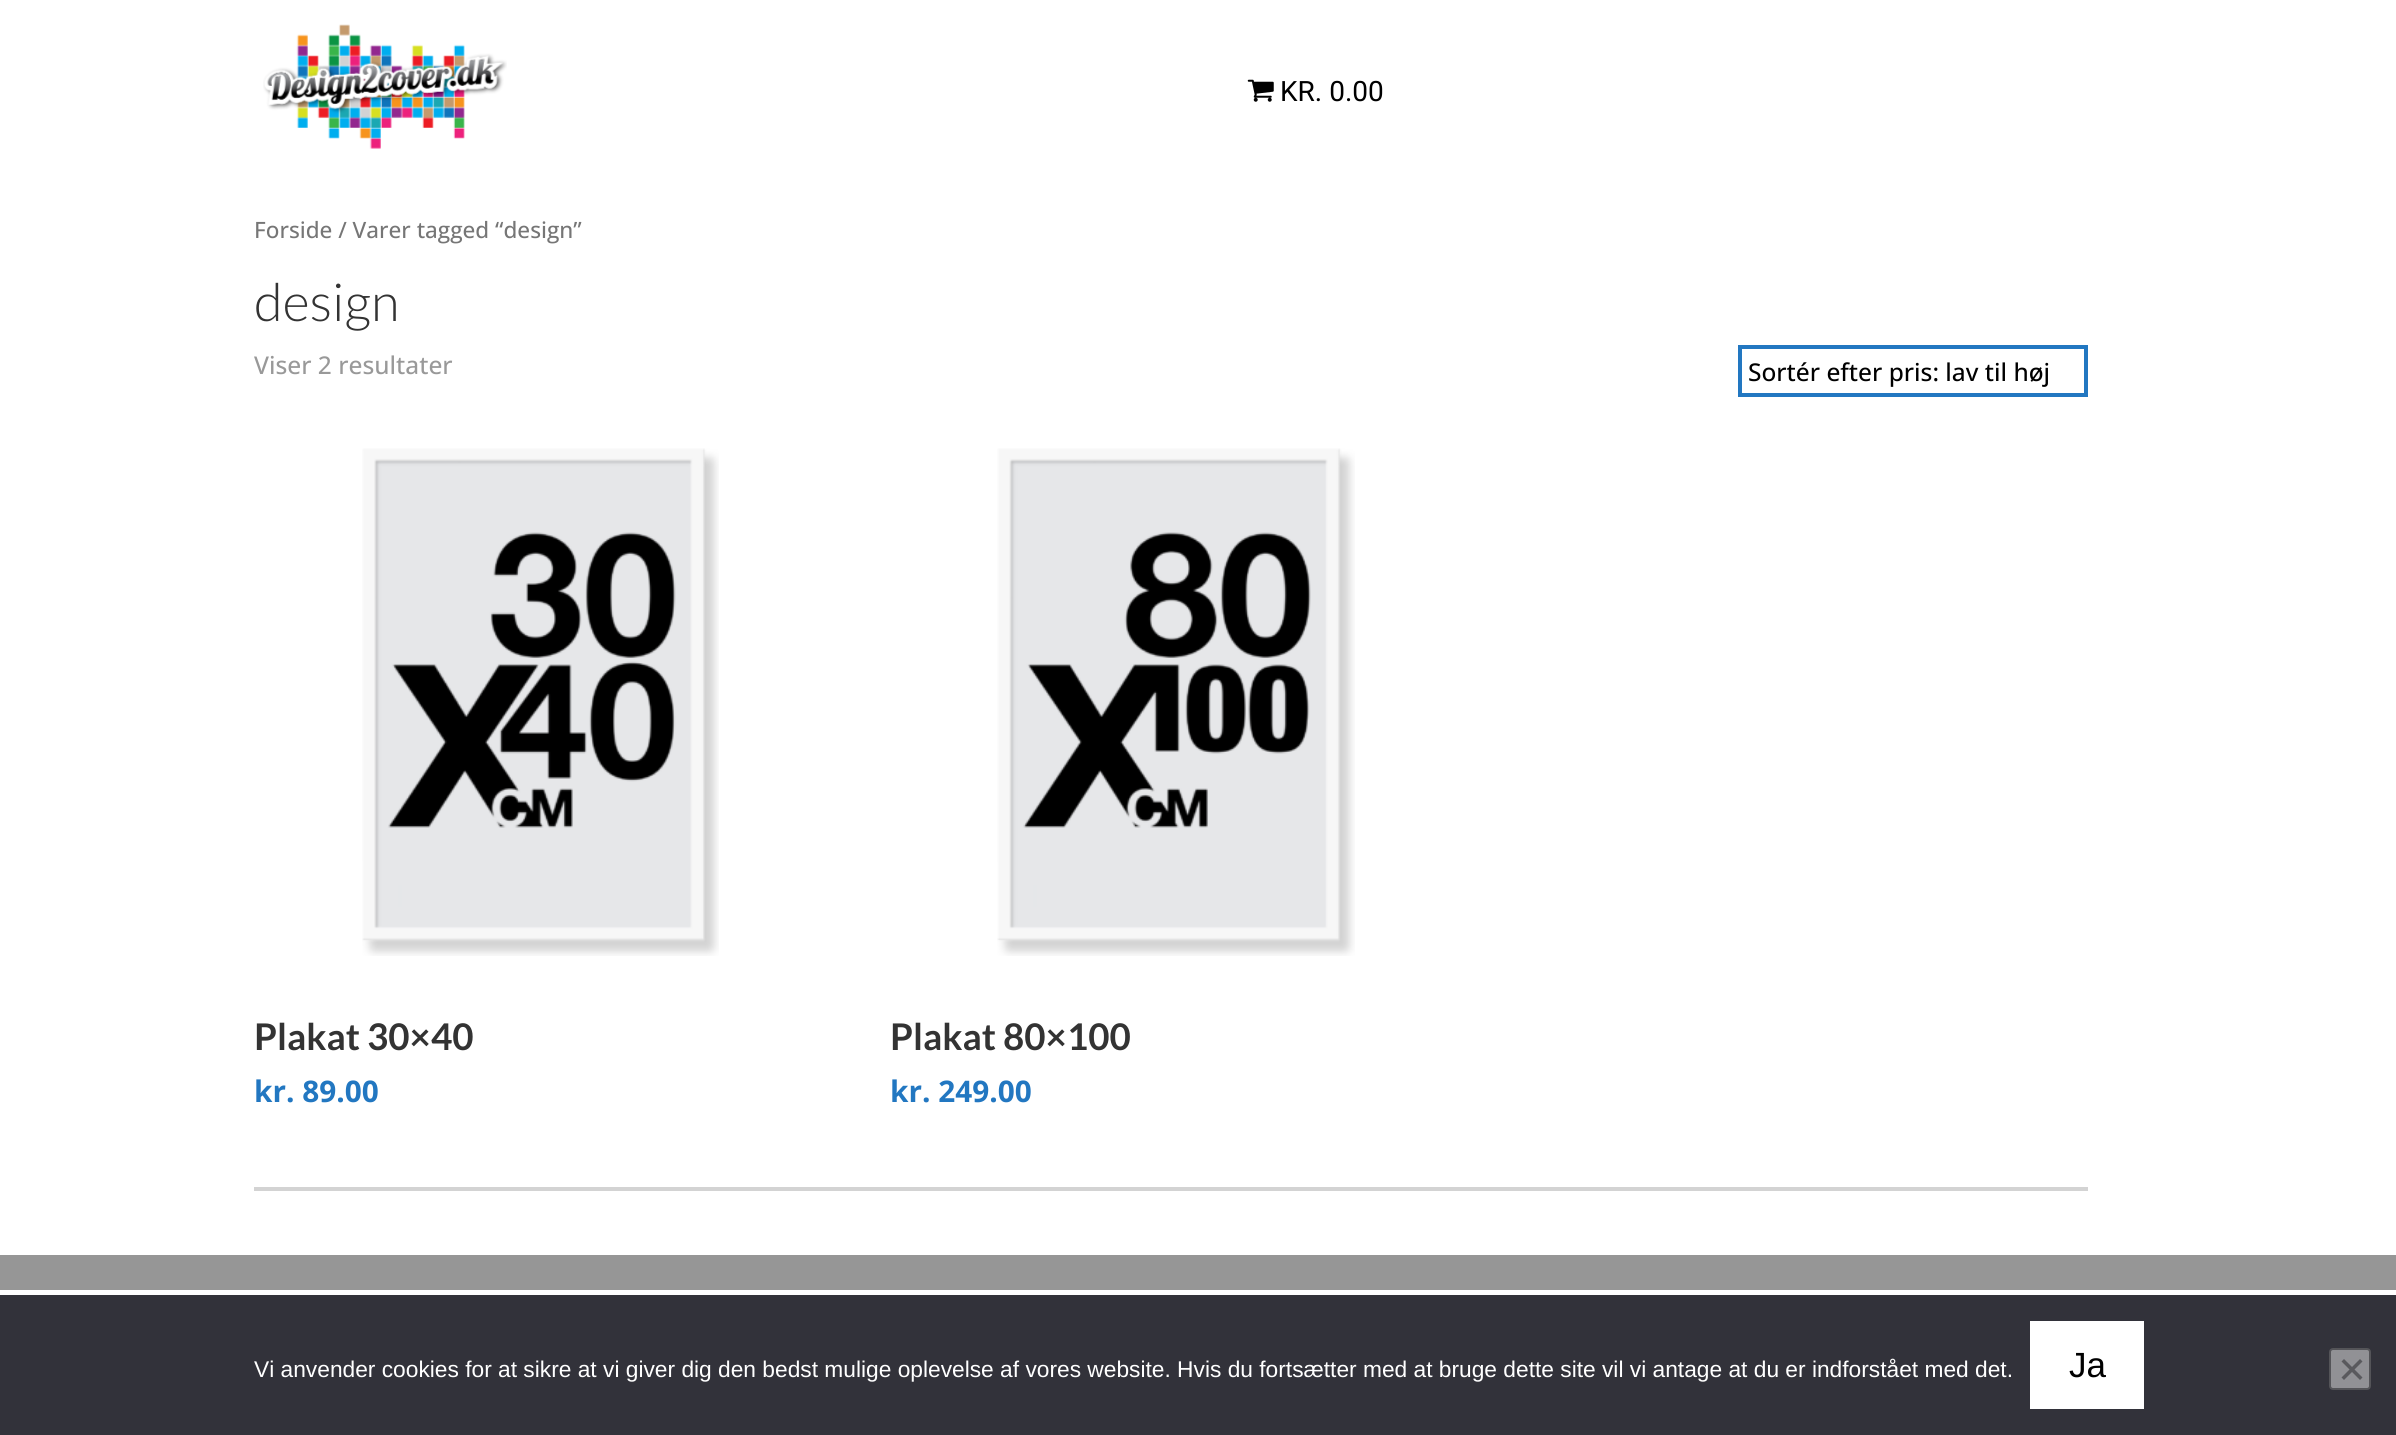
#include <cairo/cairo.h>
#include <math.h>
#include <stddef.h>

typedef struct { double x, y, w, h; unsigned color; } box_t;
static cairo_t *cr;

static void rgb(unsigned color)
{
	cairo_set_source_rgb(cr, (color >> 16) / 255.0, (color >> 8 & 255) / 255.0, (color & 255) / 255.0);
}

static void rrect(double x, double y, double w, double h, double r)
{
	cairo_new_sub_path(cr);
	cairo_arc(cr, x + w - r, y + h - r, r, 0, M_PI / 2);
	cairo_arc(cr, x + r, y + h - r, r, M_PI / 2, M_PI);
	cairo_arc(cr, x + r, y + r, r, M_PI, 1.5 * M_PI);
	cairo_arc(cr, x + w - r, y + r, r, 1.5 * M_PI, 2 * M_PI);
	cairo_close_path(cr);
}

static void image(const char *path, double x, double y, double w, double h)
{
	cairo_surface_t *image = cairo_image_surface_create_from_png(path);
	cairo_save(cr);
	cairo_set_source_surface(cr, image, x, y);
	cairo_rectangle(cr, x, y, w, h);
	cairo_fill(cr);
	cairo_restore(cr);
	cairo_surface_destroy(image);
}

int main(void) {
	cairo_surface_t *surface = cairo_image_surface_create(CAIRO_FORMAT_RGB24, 2396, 1435);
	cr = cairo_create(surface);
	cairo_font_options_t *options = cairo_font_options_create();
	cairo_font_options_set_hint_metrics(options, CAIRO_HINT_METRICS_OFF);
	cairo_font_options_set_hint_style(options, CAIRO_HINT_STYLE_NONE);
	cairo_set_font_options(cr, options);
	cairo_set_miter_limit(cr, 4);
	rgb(0xffffff);
	cairo_paint(cr);
	image("img/1.png", 263, 24, 244, 125);
	image("img/2.png", 1247, 79, 27, 23);
	cairo_rectangle(cr, 1740, 347, 346, 48);
	rgb(0x2277c1);
	cairo_set_line_width(cr, 4);
	cairo_stroke(cr);
	rgb(0xd3d3d3);
	cairo_rectangle(cr, 254, 1187, 1834, 4);
	cairo_fill(cr);
	image("img/3.png", 362, 448, 357, 508);
	image("img/4.png", 997, 448, 358, 508);
	{
		static const box_t items[] = {
			{0, 1255, 2396, 35, 0x969696},
			{0, 1295, 2396, 140, 0x32323a},
			{2030, 1321, 114, 88, 0xffffff},
		};
		for (size_t i = 0; i < sizeof items / sizeof *items; i++) {
			rgb(items[i].color);
			cairo_rectangle(cr, items[i].x, items[i].y, items[i].w, items[i].h);
			cairo_fill(cr);
		}
	}
	rgb(0x919195);
	rrect(2330, 1349, 40, 40, 3);
	cairo_fill_preserve(cr);
	rgb(0x545458);
	cairo_set_line_width(cr, 2);
	cairo_stroke(cr);
	rgb(0x59595d);
	cairo_new_path(cr);
	cairo_move_to(cr, 2360, 1359);
	cairo_line_to(cr, 2362.5, 1361.5);
	cairo_line_to(cr, 2344, 1380);
	cairo_line_to(cr, 2341.5, 1377.5);
	cairo_close_path(cr);
	cairo_fill(cr);
	cairo_new_path(cr);
	cairo_move_to(cr, 2341.5, 1361.5);
	cairo_line_to(cr, 2344, 1359);
	cairo_line_to(cr, 2362.5, 1377.5);
	cairo_line_to(cr, 2360, 1380);
	cairo_close_path(cr);
	cairo_fill(cr);
	cairo_select_font_face(cr, "Roboto", CAIRO_FONT_SLANT_NORMAL, CAIRO_FONT_WEIGHT_NORMAL);
	cairo_set_font_size(cr, 28);
	rgb(0x000000);
	cairo_move_to(cr, 1280, 101);
	cairo_show_text(cr, "KR. 0.00");
	cairo_select_font_face(cr, "Open Sans Medium", CAIRO_FONT_SLANT_NORMAL, CAIRO_FONT_WEIGHT_NORMAL);
	cairo_set_font_size(cr, 22.5);
	rgb(0x767676);
	cairo_move_to(cr, 254, 238);
	cairo_show_text(cr, "Forside / Varer tagged “design”");
	cairo_select_font_face(cr, "Lato Light", CAIRO_FONT_SLANT_NORMAL, CAIRO_FONT_WEIGHT_NORMAL);
	cairo_set_font_size(cr, 52.5);
	rgb(0x333333);
	cairo_move_to(cr, 254, 321);
	cairo_show_text(cr, "design");
	cairo_select_font_face(cr, "Open Sans Medium", CAIRO_FONT_SLANT_NORMAL, CAIRO_FONT_WEIGHT_NORMAL);
	cairo_set_font_size(cr, 24.5);
	rgb(0x999999);
	cairo_move_to(cr, 254, 374);
	cairo_show_text(cr, "Viser 2 resultater");
	rgb(0x000000);
	cairo_move_to(cr, 1748, 381);
	cairo_show_text(cr, "Sortér efter pris: lav til høj");
	cairo_select_font_face(cr, "Lato", CAIRO_FONT_SLANT_NORMAL, CAIRO_FONT_WEIGHT_BOLD);
	cairo_set_font_size(cr, 36.75);
	rgb(0x333333);
	cairo_move_to(cr, 254, 1050);
	cairo_show_text(cr, "Plakat 30×40");
	cairo_select_font_face(cr, "Open Sans", CAIRO_FONT_SLANT_NORMAL, CAIRO_FONT_WEIGHT_BOLD);
	cairo_set_font_size(cr, 29.75);
	rgb(0x2277c1);
	cairo_move_to(cr, 254, 1102);
	cairo_show_text(cr, "kr. 89.00");
	cairo_select_font_face(cr, "Lato", CAIRO_FONT_SLANT_NORMAL, CAIRO_FONT_WEIGHT_BOLD);
	cairo_set_font_size(cr, 36.75);
	rgb(0x333333);
	cairo_move_to(cr, 890, 1050);
	cairo_show_text(cr, "Plakat 80×100");
	cairo_select_font_face(cr, "Open Sans", CAIRO_FONT_SLANT_NORMAL, CAIRO_FONT_WEIGHT_BOLD);
	cairo_set_font_size(cr, 29.75);
	rgb(0x2277c1);
	cairo_move_to(cr, 890, 1102);
	cairo_show_text(cr, "kr. 249.00");
	cairo_select_font_face(cr, "Liberation Sans", CAIRO_FONT_SLANT_NORMAL, CAIRO_FONT_WEIGHT_NORMAL);
	cairo_set_font_size(cr, 22.75);
	rgb(0xffffff);
	cairo_move_to(cr, 254, 1377);
	cairo_show_text(cr, "Vi anvender cookies for at sikre at vi giver dig den bedst mulige oplevelse af vores website. Hvis du fortsætter med at bruge dette site vil vi antage at du er indforstået med det.");
	cairo_set_font_size(cr, 35);
	rgb(0x000000);
	cairo_move_to(cr, 2069, 1377);
	cairo_show_text(cr, "Ja");
	cairo_surface_write_to_png(surface, "page.png");
	cairo_font_options_destroy(options);
	cairo_destroy(cr);
	cairo_surface_destroy(surface);
	return 0;
}
